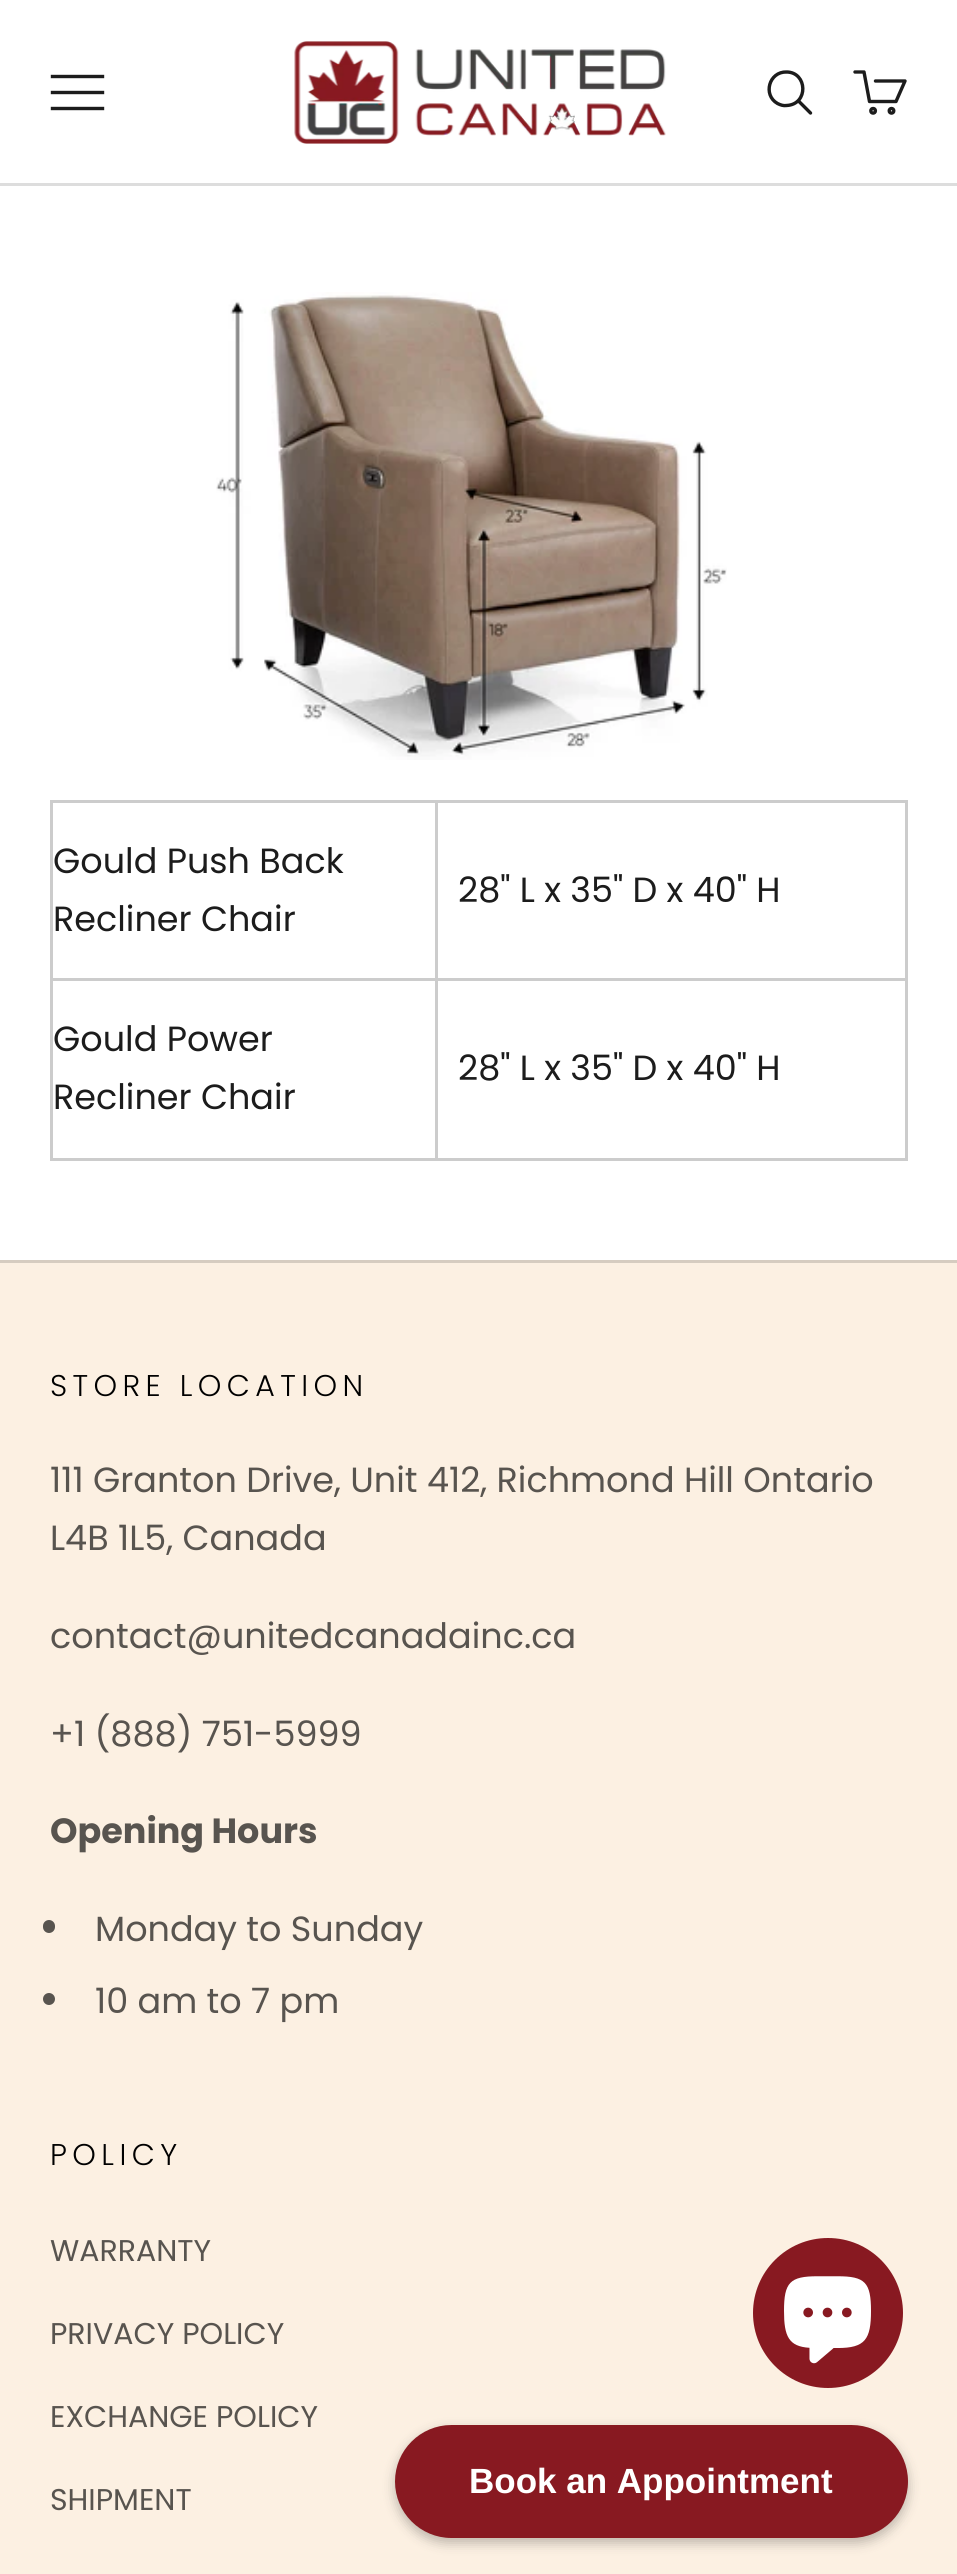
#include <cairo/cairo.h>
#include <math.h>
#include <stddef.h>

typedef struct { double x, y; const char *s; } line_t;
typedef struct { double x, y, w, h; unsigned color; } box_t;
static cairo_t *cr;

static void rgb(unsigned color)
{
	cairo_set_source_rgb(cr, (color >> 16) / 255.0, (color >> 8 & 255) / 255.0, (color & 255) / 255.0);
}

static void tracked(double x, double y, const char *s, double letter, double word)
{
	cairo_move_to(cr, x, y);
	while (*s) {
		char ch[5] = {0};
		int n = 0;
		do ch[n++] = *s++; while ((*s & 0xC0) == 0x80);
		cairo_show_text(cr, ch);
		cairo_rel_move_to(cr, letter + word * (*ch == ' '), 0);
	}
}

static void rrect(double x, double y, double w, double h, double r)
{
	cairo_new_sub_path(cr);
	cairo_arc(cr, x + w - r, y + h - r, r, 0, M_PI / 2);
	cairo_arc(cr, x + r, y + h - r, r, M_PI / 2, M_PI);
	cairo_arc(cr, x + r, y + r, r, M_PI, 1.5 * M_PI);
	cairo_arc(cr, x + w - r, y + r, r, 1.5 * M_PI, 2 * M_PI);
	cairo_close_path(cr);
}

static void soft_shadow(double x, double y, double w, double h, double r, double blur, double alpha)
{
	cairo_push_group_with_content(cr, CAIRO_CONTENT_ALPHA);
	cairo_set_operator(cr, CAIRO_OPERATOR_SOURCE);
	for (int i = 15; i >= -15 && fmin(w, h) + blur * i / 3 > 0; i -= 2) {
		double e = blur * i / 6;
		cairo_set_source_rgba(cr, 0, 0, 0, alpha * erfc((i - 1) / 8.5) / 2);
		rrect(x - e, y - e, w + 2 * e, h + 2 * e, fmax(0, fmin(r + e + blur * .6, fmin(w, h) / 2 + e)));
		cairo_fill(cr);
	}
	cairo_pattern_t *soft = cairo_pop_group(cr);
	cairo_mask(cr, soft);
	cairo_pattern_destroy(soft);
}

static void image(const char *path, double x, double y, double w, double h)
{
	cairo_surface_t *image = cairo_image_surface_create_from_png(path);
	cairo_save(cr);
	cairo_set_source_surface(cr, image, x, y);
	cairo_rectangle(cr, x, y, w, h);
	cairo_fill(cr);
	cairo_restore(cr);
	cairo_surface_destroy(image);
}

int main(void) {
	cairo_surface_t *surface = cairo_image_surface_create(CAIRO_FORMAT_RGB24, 957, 2574);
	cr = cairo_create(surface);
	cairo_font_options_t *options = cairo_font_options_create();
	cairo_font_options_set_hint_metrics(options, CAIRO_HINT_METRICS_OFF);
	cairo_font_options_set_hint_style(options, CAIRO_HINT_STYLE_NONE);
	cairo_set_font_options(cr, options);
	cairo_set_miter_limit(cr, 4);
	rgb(0xffffff);
	cairo_paint(cr);
	rgb(0xdddddd);
	cairo_rectangle(cr, 0, 183, 957, 3);
	cairo_fill(cr);
	cairo_new_path(cr);
	cairo_move_to(cr, 52.5, 108.5);
	cairo_line_to(cr, 102.5, 108.5);
	cairo_move_to(cr, 52.5, 92.5);
	cairo_line_to(cr, 102.5, 92.5);
	cairo_move_to(cr, 52.5, 76.5);
	cairo_line_to(cr, 102.5, 76.5);
	rgb(0x1c1c1c);
	cairo_set_line_width(cr, 3.4);
	cairo_set_line_cap(cr, CAIRO_LINE_CAP_SQUARE);
	cairo_stroke(cr);
	image("img/1.png", 294, 41, 372, 103);
	cairo_new_path(cr);
	cairo_move_to(cr, 786.5, 72);
	cairo_curve_to(cr, 769, 71.5, 762.5, 95, 777.5, 103.5);
	cairo_curve_to(cr, 780.5, 105, 783.5, 106, 786.5, 105.5);
	cairo_curve_to(cr, 809, 104.5, 807.5, 72, 786.5, 72);
	cairo_close_path(cr);
	cairo_set_line_cap(cr, CAIRO_LINE_CAP_BUTT);
	cairo_stroke(cr);
	cairo_new_path(cr);
	cairo_move_to(cr, 799, 101.5);
	cairo_line_to(cr, 810.5, 113);
	cairo_set_line_cap(cr, CAIRO_LINE_CAP_ROUND);
	cairo_stroke(cr);
	cairo_new_path(cr);
	cairo_move_to(cr, 875.5, 81);
	cairo_line_to(cr, 905, 81);
	cairo_line_to(cr, 896, 101.5);
	cairo_line_to(cr, 869.5, 101.5);
	cairo_line_to(cr, 864, 72);
	cairo_line_to(cr, 855, 72);
	cairo_set_line_join(cr, CAIRO_LINE_JOIN_ROUND);
	cairo_stroke(cr);
	cairo_arc(cr, 873.1, 110.8, 2.3, 0, 2 * M_PI);
	cairo_set_line_cap(cr, CAIRO_LINE_CAP_BUTT);
	cairo_set_line_join(cr, CAIRO_LINE_JOIN_MITER);
	cairo_stroke(cr);
	cairo_arc(cr, 891.5, 110.8, 2.3, 0, 2 * M_PI);
	cairo_stroke(cr);
	image("img/2.png", 216, 292, 511, 468);
	{
		static const box_t items[] = {
			{435, 800, 473, 3, 0xcccccc},
			{435, 978, 473, 3, 0xcccccc},
			{905, 978, 3, 182, 0xcccccc},
			{435, 1158, 473, 3, 0xcccccc},
			{435, 978, 3, 182, 0xcccccc},
			{50, 978, 388, 3, 0xcccccc},
			{435, 800, 3, 180, 0xcccccc},
			{50, 800, 388, 3, 0xcccccc},
			{50, 1158, 388, 3, 0xcccccc},
			{50, 978, 3, 182, 0xcccccc},
			{50, 800, 3, 180, 0xcccccc},
			{905, 800, 3, 180, 0xcccccc},
			{0, 1263, 957, 1311, 0xfcf0e2},
			{0, 1260, 957, 3, 0xd6ccc0},
		};
		for (size_t i = 0; i < sizeof items / sizeof *items; i++) {
			rgb(items[i].color);
			cairo_rectangle(cr, items[i].x, items[i].y, items[i].w, items[i].h);
			cairo_fill(cr);
		}
	}
	rgb(0x58544f);
	rrect(43, 1920, 12, 13, 6);
	cairo_fill(cr);
	cairo_arc(cr, 49, 1999, 6, 0, 2 * M_PI);
	cairo_fill(cr);
	rgb(0x881921);
	cairo_arc(cr, 828, 2313, 75, 0, 2 * M_PI);
	cairo_fill(cr);
	image("img/3.png", 784, 2276, 87, 88);
	rgb(0x000000);
	soft_shadow(395, 2430, 513, 113, 56.5, 6, 0.25);
	rgb(0x881921);
	rrect(395, 2425, 513, 113, 56.5);
	cairo_fill(cr);
	cairo_select_font_face(cr, "Poppins", CAIRO_FONT_SLANT_NORMAL, CAIRO_FONT_WEIGHT_NORMAL);
	cairo_set_font_size(cr, 35);
	rgb(0x1c1c1c);
	{
		static const line_t items[] = {
			{53, 873, "Gould Push Back"},
			{53, 931, "Recliner Chair"},
			{458, 902, "28\" L x 35\" D x 40\" H"},
			{53, 1051, "Gould Power"},
			{53, 1109, "Recliner Chair"},
			{458, 1080, "28\" L x 35\" D x 40\" H"},
		};
		for (size_t i = 0; i < sizeof items / sizeof *items; i++) {
			cairo_move_to(cr, items[i].x, items[i].y);
			cairo_show_text(cr, items[i].s);
		}
	}
	cairo_select_font_face(cr, "Poppins Light", CAIRO_FONT_SLANT_NORMAL, CAIRO_FONT_WEIGHT_NORMAL);
	cairo_set_font_size(cr, 30);
	rgb(0x000000);
	tracked(50, 1396, "STORE LOCATION", 5.4, 0);
	cairo_select_font_face(cr, "Poppins", CAIRO_FONT_SLANT_NORMAL, CAIRO_FONT_WEIGHT_NORMAL);
	cairo_set_font_size(cr, 35);
	rgb(0x58544f);
	{
		static const line_t items[] = {
			{50, 1492, "111 Granton Drive, Unit 412, Richmond Hill Ontario"},
			{50, 1550, "L4B 1L5, Canada"},
			{50, 1648, "contact@unitedcanadainc.ca"},
			{50, 1746, "+1 (888) 751-5999"},
		};
		for (size_t i = 0; i < sizeof items / sizeof *items; i++) {
			cairo_move_to(cr, items[i].x, items[i].y);
			cairo_show_text(cr, items[i].s);
		}
	}
	cairo_select_font_face(cr, "Poppins", CAIRO_FONT_SLANT_NORMAL, CAIRO_FONT_WEIGHT_BOLD);
	cairo_move_to(cr, 50, 1843);
	cairo_show_text(cr, "Opening Hours");
	cairo_select_font_face(cr, "Poppins", CAIRO_FONT_SLANT_NORMAL, CAIRO_FONT_WEIGHT_NORMAL);
	cairo_move_to(cr, 95, 1941);
	cairo_show_text(cr, "Monday to Sunday");
	cairo_move_to(cr, 95, 2013);
	cairo_show_text(cr, "10 am to 7 pm");
	cairo_select_font_face(cr, "Poppins Light", CAIRO_FONT_SLANT_NORMAL, CAIRO_FONT_WEIGHT_NORMAL);
	cairo_set_font_size(cr, 30);
	rgb(0x000000);
	tracked(50, 2165, "POLICY", 5.4, 0);
	cairo_select_font_face(cr, "Poppins", CAIRO_FONT_SLANT_NORMAL, CAIRO_FONT_WEIGHT_NORMAL);
	rgb(0x58544f);
	{
		static const line_t items[] = {
			{50, 2261, "WARRANTY"},
			{50, 2344, "PRIVACY POLICY"},
			{50, 2427, "EXCHANGE POLICY"},
			{50, 2510, "SHIPMENT"},
		};
		for (size_t i = 0; i < sizeof items / sizeof *items; i++) {
			cairo_move_to(cr, items[i].x, items[i].y);
			cairo_show_text(cr, items[i].s);
		}
	}
	cairo_select_font_face(cr, "Liberation Sans", CAIRO_FONT_SLANT_NORMAL, CAIRO_FONT_WEIGHT_BOLD);
	cairo_set_font_size(cr, 35);
	rgb(0xffffff);
	cairo_move_to(cr, 469, 2493);
	cairo_show_text(cr, "Book an Appointment");
	cairo_surface_write_to_png(surface, "page.png");
	cairo_font_options_destroy(options);
	cairo_destroy(cr);
	cairo_surface_destroy(surface);
	return 0;
}
